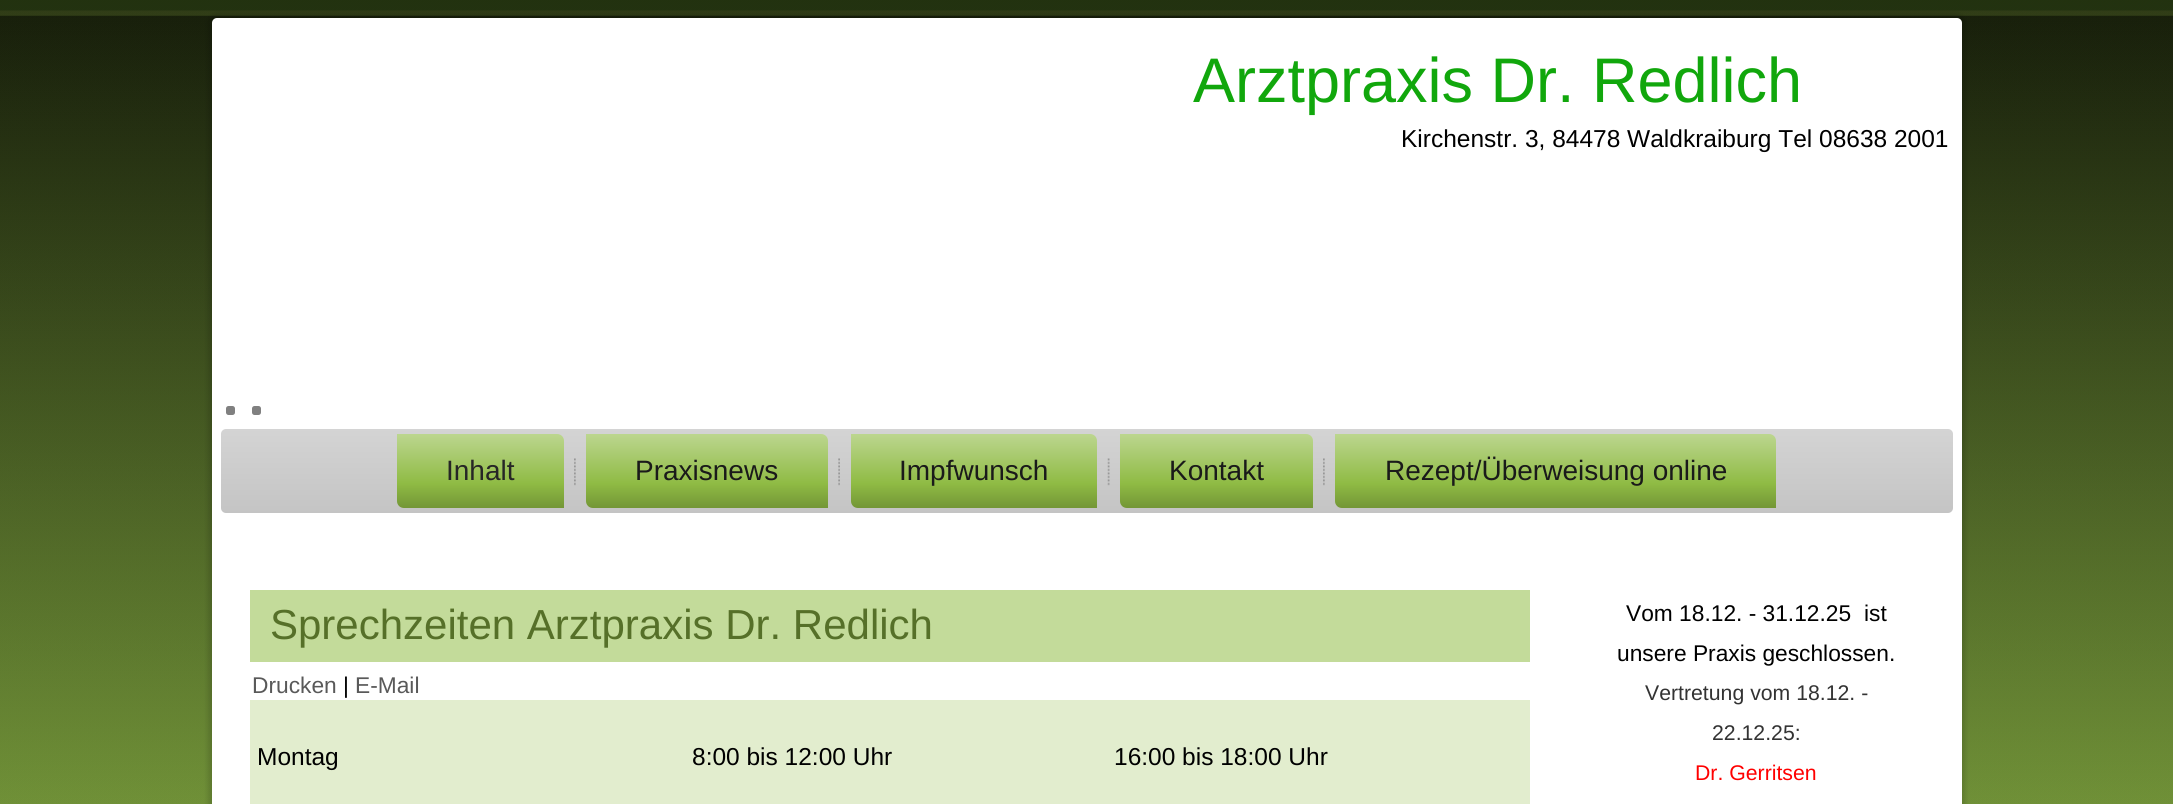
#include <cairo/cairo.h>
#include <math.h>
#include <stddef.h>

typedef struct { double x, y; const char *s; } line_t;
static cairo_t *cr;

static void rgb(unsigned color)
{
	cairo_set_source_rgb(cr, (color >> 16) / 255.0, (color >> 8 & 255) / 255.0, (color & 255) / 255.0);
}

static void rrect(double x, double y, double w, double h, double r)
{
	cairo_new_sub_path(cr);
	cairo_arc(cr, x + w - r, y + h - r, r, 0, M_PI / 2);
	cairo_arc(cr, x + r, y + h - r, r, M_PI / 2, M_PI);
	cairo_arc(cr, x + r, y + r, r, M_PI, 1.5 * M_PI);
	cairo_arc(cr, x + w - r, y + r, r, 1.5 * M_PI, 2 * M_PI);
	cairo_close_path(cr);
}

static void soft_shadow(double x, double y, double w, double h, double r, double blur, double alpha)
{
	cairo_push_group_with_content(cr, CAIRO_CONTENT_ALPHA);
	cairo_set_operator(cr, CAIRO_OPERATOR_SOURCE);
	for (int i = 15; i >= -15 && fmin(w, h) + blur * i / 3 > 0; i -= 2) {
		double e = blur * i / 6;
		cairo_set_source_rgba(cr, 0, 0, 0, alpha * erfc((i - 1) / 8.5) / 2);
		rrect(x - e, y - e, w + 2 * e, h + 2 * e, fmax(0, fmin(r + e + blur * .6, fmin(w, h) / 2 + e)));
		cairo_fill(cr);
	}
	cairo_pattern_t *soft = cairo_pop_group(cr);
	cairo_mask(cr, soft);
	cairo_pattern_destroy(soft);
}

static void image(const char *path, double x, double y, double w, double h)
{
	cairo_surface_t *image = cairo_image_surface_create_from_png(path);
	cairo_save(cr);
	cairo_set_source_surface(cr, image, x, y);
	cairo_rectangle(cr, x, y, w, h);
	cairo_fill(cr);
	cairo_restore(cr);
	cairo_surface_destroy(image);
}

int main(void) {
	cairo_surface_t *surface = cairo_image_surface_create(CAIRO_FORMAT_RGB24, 2173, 804);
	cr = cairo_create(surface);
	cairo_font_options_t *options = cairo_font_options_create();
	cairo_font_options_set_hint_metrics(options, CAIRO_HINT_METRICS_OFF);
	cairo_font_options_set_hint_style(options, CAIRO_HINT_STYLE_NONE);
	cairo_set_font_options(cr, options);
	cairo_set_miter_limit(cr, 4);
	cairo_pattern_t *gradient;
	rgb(0xffffff);
	cairo_paint(cr);
	image("img/1.png", 0, 0, 2173, 804);
	rgb(0x000000);
	soft_shadow(208, 14, 1757, 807, 9, 2.5, 0.15);
	rgb(0xffffff);
	rrect(212, 18, 1750, 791, 5);
	cairo_fill(cr);
	rgb(0x808080);
	rrect(226, 406, 9, 9, 2.5);
	cairo_fill(cr);
	rrect(252, 406, 9, 9, 2.5);
	cairo_fill(cr);
	gradient = cairo_pattern_create_linear(1087, 429, 1087, 513);
	cairo_pattern_add_color_stop_rgba(gradient, 0, 0.831, 0.831, 0.831, 1);
	cairo_pattern_add_color_stop_rgba(gradient, 1, 0.769, 0.769, 0.769, 1);
	cairo_set_source(cr, gradient);
	cairo_pattern_destroy(gradient);
	rrect(221, 429, 1732, 84, 5);
	cairo_fill(cr);
	gradient = cairo_pattern_create_linear(480, 434, 480, 508);
	cairo_pattern_add_color_stop_rgba(gradient, 0, 0.737, 0.839, 0.561, 1);
	cairo_pattern_add_color_stop_rgba(gradient, 0.67, 0.561, 0.733, 0.267, 1);
	cairo_pattern_add_color_stop_rgba(gradient, 1, 0.451, 0.588, 0.212, 1);
	cairo_set_source(cr, gradient);
	cairo_pattern_destroy(gradient);
	cairo_new_path(cr);
	cairo_move_to(cr, 397, 434);
	cairo_line_to(cr, 557, 434);
	cairo_curve_to(cr, 561, 434, 564, 437, 564, 441);
	cairo_line_to(cr, 564, 508);
	cairo_line_to(cr, 404, 508);
	cairo_curve_to(cr, 400, 508, 397, 505, 397, 501);
	cairo_close_path(cr);
	cairo_fill(cr);
	image("img/2.png", 574, 458, 2, 28);
	gradient = cairo_pattern_create_linear(707, 434, 707, 508);
	cairo_pattern_add_color_stop_rgba(gradient, 0, 0.737, 0.839, 0.561, 1);
	cairo_pattern_add_color_stop_rgba(gradient, 0.67, 0.561, 0.733, 0.267, 1);
	cairo_pattern_add_color_stop_rgba(gradient, 1, 0.451, 0.588, 0.212, 1);
	cairo_set_source(cr, gradient);
	cairo_pattern_destroy(gradient);
	cairo_new_path(cr);
	cairo_move_to(cr, 586, 434);
	cairo_line_to(cr, 821, 434);
	cairo_curve_to(cr, 825, 434, 828, 437, 828, 441);
	cairo_line_to(cr, 828, 508);
	cairo_line_to(cr, 593, 508);
	cairo_curve_to(cr, 589, 508, 586, 505, 586, 501);
	cairo_close_path(cr);
	cairo_fill(cr);
	image("img/3.png", 838, 458, 2, 28);
	gradient = cairo_pattern_create_linear(974, 434, 974, 508);
	cairo_pattern_add_color_stop_rgba(gradient, 0, 0.737, 0.839, 0.561, 1);
	cairo_pattern_add_color_stop_rgba(gradient, 0.67, 0.561, 0.733, 0.267, 1);
	cairo_pattern_add_color_stop_rgba(gradient, 1, 0.451, 0.588, 0.212, 1);
	cairo_set_source(cr, gradient);
	cairo_pattern_destroy(gradient);
	cairo_new_path(cr);
	cairo_move_to(cr, 851, 434);
	cairo_line_to(cr, 1090, 434);
	cairo_curve_to(cr, 1094, 434, 1097, 437, 1097, 441);
	cairo_line_to(cr, 1097, 508);
	cairo_line_to(cr, 858, 508);
	cairo_curve_to(cr, 854, 508, 851, 505, 851, 501);
	cairo_close_path(cr);
	cairo_fill(cr);
	image("img/4.png", 1107, 458, 3, 28);
	gradient = cairo_pattern_create_linear(1216, 434, 1216, 508);
	cairo_pattern_add_color_stop_rgba(gradient, 0, 0.737, 0.839, 0.561, 1);
	cairo_pattern_add_color_stop_rgba(gradient, 0.67, 0.561, 0.733, 0.267, 1);
	cairo_pattern_add_color_stop_rgba(gradient, 1, 0.451, 0.588, 0.212, 1);
	cairo_set_source(cr, gradient);
	cairo_pattern_destroy(gradient);
	cairo_new_path(cr);
	cairo_move_to(cr, 1120, 434);
	cairo_line_to(cr, 1306, 434);
	cairo_curve_to(cr, 1310, 434, 1313, 437, 1313, 441);
	cairo_line_to(cr, 1313, 508);
	cairo_line_to(cr, 1127, 508);
	cairo_curve_to(cr, 1123, 508, 1120, 505, 1120, 501);
	cairo_close_path(cr);
	cairo_fill(cr);
	image("img/2.png", 1323, 458, 2, 28);
	gradient = cairo_pattern_create_linear(1556, 434, 1556, 508);
	cairo_pattern_add_color_stop_rgba(gradient, 0, 0.737, 0.839, 0.561, 1);
	cairo_pattern_add_color_stop_rgba(gradient, 0.67, 0.561, 0.733, 0.267, 1);
	cairo_pattern_add_color_stop_rgba(gradient, 1, 0.451, 0.588, 0.212, 1);
	cairo_set_source(cr, gradient);
	cairo_pattern_destroy(gradient);
	cairo_new_path(cr);
	cairo_move_to(cr, 1335, 434);
	cairo_line_to(cr, 1769, 434);
	cairo_curve_to(cr, 1773, 434, 1776, 437, 1776, 441);
	cairo_line_to(cr, 1776, 508);
	cairo_line_to(cr, 1342, 508);
	cairo_curve_to(cr, 1338, 508, 1335, 505, 1335, 501);
	cairo_close_path(cr);
	cairo_fill(cr);
	rgb(0xc3db9a);
	cairo_rectangle(cr, 250, 590, 1280, 72);
	cairo_fill(cr);
	rgb(0xe2edce);
	cairo_rectangle(cr, 250, 700, 1280, 104);
	cairo_fill(cr);
	cairo_select_font_face(cr, "Liberation Sans", CAIRO_FONT_SLANT_NORMAL, CAIRO_FONT_WEIGHT_NORMAL);
	cairo_set_font_size(cr, 63);
	rgb(0x11a70c);
	cairo_move_to(cr, 1193, 102);
	cairo_show_text(cr, "Arztpraxis Dr. Redlich");
	cairo_set_font_size(cr, 24.5);
	rgb(0x000000);
	cairo_move_to(cr, 1401, 147);
	cairo_show_text(cr, "Kirchenstr. 3, 84478 Waldkraiburg Tel 08638 2001");
	cairo_set_font_size(cr, 28);
	rgb(0x262626);
	cairo_move_to(cr, 446, 480);
	cairo_show_text(cr, "Inhalt");
	rgb(0x1a1a1a);
	{
		static const line_t items[] = {
			{635, 480, "Praxisnews"},
			{899, 480, "Impfwunsch"},
			{1169, 480, "Kontakt"},
			{1385, 480, "Rezept/Überweisung online"},
		};
		for (size_t i = 0; i < sizeof items / sizeof *items; i++) {
			cairo_move_to(cr, items[i].x, items[i].y);
			cairo_show_text(cr, items[i].s);
		}
	}
	cairo_set_font_size(cr, 42);
	rgb(0x567029);
	cairo_move_to(cr, 270, 639);
	cairo_show_text(cr, "Sprechzeiten Arztpraxis Dr. Redlich");
	cairo_set_font_size(cr, 22.75);
	rgb(0x595959);
	cairo_move_to(cr, 252, 693);
	cairo_show_text(cr, "Drucken");
	rgb(0x000000);
	cairo_move_to(cr, 343, 693);
	cairo_show_text(cr, "|");
	rgb(0x595959);
	cairo_move_to(cr, 355, 693);
	cairo_show_text(cr, "E-Mail");
	cairo_set_font_size(cr, 24.5);
	rgb(0x000000);
	{
		static const line_t items[] = {
			{257, 765, "Montag"},
			{692, 765, "8:00 bis 12:00 Uhr"},
			{1114, 765, "16:00 bis 18:00 Uhr"},
		};
		for (size_t i = 0; i < sizeof items / sizeof *items; i++) {
			cairo_move_to(cr, items[i].x, items[i].y);
			cairo_show_text(cr, items[i].s);
		}
	}
	cairo_set_font_size(cr, 22.75);
	{
		static const line_t items[] = {
			{1626, 621, "Vom 18.12. - 31.12.25"},
			{1864, 621, "ist"},
			{1617, 661, "unsere Praxis geschlossen."},
		};
		for (size_t i = 0; i < sizeof items / sizeof *items; i++) {
			cairo_move_to(cr, items[i].x, items[i].y);
			cairo_show_text(cr, items[i].s);
		}
	}
	cairo_set_font_size(cr, 21.25);
	rgb(0x333333);
	cairo_move_to(cr, 1645, 700);
	cairo_show_text(cr, "Vertretung vom 18.12. -");
	cairo_move_to(cr, 1712, 740);
	cairo_show_text(cr, "22.12.25:");
	rgb(0xff0000);
	cairo_move_to(cr, 1695, 780);
	cairo_show_text(cr, "Dr. Gerritsen");
	cairo_surface_write_to_png(surface, "page.png");
	cairo_font_options_destroy(options);
	cairo_destroy(cr);
	cairo_surface_destroy(surface);
	return 0;
}
